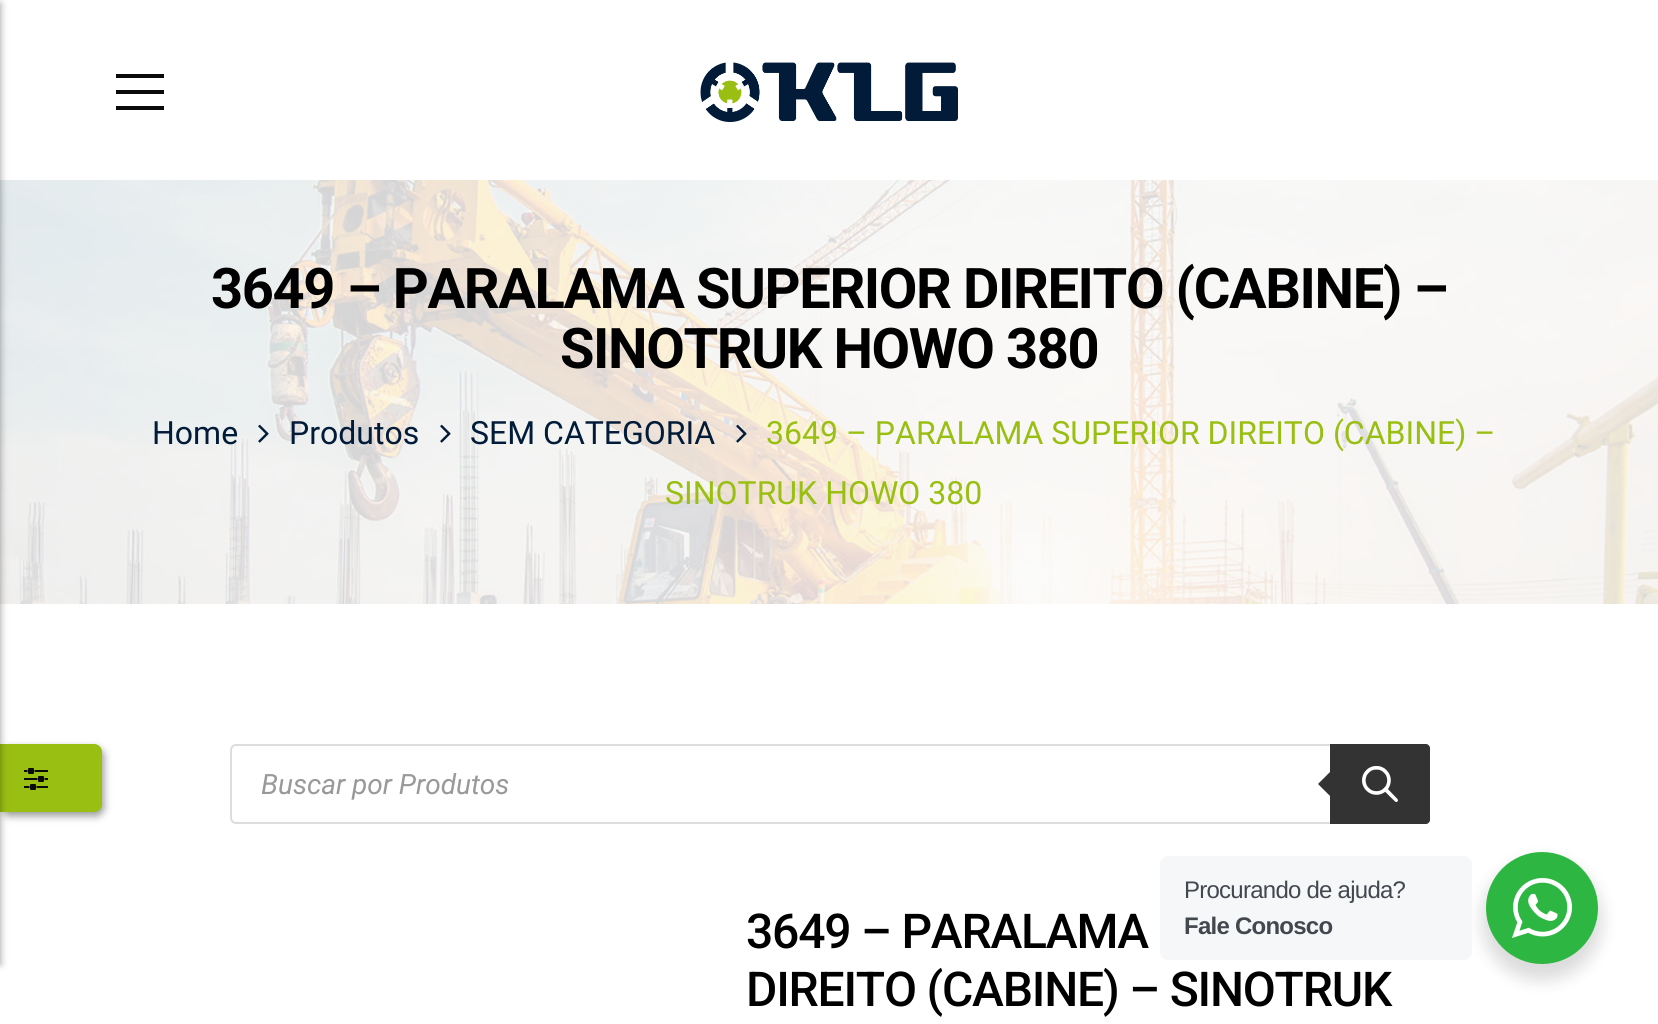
#include <cairo/cairo.h>
#include <math.h>
#include <stddef.h>

typedef struct { double x, y; const char *s; } line_t;
typedef struct { double x, y, w, h; unsigned color; } box_t;
static cairo_t *cr;

static void rgb(unsigned color)
{
	cairo_set_source_rgb(cr, (color >> 16) / 255.0, (color >> 8 & 255) / 255.0, (color & 255) / 255.0);
}

static void tracked(double x, double y, const char *s, double letter, double word)
{
	cairo_move_to(cr, x, y);
	while (*s) {
		char ch[5] = {0};
		int n = 0;
		do ch[n++] = *s++; while ((*s & 0xC0) == 0x80);
		cairo_show_text(cr, ch);
		cairo_rel_move_to(cr, letter + word * (*ch == ' '), 0);
	}
}

static void rrect(double x, double y, double w, double h, double r)
{
	cairo_new_sub_path(cr);
	cairo_arc(cr, x + w - r, y + h - r, r, 0, M_PI / 2);
	cairo_arc(cr, x + r, y + h - r, r, M_PI / 2, M_PI);
	cairo_arc(cr, x + r, y + r, r, M_PI, 1.5 * M_PI);
	cairo_arc(cr, x + w - r, y + r, r, 1.5 * M_PI, 2 * M_PI);
	cairo_close_path(cr);
}

static void soft_shadow(double x, double y, double w, double h, double r, double blur, double alpha)
{
	cairo_push_group_with_content(cr, CAIRO_CONTENT_ALPHA);
	cairo_set_operator(cr, CAIRO_OPERATOR_SOURCE);
	for (int i = 15; i >= -15 && fmin(w, h) + blur * i / 3 > 0; i -= 2) {
		double e = blur * i / 6;
		cairo_set_source_rgba(cr, 0, 0, 0, alpha * erfc((i - 1) / 8.5) / 2);
		rrect(x - e, y - e, w + 2 * e, h + 2 * e, fmax(0, fmin(r + e + blur * .6, fmin(w, h) / 2 + e)));
		cairo_fill(cr);
	}
	cairo_pattern_t *soft = cairo_pop_group(cr);
	cairo_mask(cr, soft);
	cairo_pattern_destroy(soft);
}

static void image(const char *path, double x, double y, double w, double h)
{
	cairo_surface_t *image = cairo_image_surface_create_from_png(path);
	cairo_save(cr);
	cairo_set_source_surface(cr, image, x, y);
	cairo_rectangle(cr, x, y, w, h);
	cairo_fill(cr);
	cairo_restore(cr);
	cairo_surface_destroy(image);
}

int main(void) {
	cairo_surface_t *surface = cairo_image_surface_create(CAIRO_FORMAT_RGB24, 1658, 1024);
	cr = cairo_create(surface);
	cairo_font_options_t *options = cairo_font_options_create();
	cairo_font_options_set_hint_metrics(options, CAIRO_HINT_METRICS_OFF);
	cairo_font_options_set_hint_style(options, CAIRO_HINT_STYLE_NONE);
	cairo_set_font_options(cr, options);
	cairo_set_miter_limit(cr, 4);
	rgb(0xffffff);
	cairo_paint(cr);
	{
		static const box_t items[] = {
			{116, 74, 48, 4, 0x0a0a0a},
			{116, 90, 48, 4, 0x0a0a0a},
			{116, 106, 48, 4, 0x0a0a0a},
		};
		for (size_t i = 0; i < sizeof items / sizeof *items; i++) {
			rgb(items[i].color);
			cairo_rectangle(cr, items[i].x, items[i].y, items[i].w, items[i].h);
			cairo_fill(cr);
		}
	}
	image("img/1.png", 700, 62, 258, 60);
	image("img/2.png", 0, 180, 1658, 424);
	image("img/3.png", 258, 424, 11, 19);
	image("img/4.png", 440, 424, 11, 19);
	image("img/5.png", 736, 424, 11, 19);
	rgb(0x000000);
	soft_shadow(2, 748, 102, 68, 8, 4, 0.4);
	rgb(0x9abf13);
	cairo_new_path(cr);
	cairo_move_to(cr, 0, 744);
	cairo_line_to(cr, 94, 744);
	cairo_curve_to(cr, 98.5, 744, 102, 747.5, 102, 752);
	cairo_line_to(cr, 102, 804);
	cairo_curve_to(cr, 102, 808.5, 98.5, 812, 94, 812);
	cairo_line_to(cr, 0, 812);
	cairo_close_path(cr);
	cairo_fill(cr);
	image("img/6.png", 24, 768, 24, 22);
	rgb(0x000000);
	soft_shadow(-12, 4, 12, 960, 0, 4, 0.4);
	rrect(231, 745, 1198, 78, 5);
	rgb(0xdddddd);
	cairo_stroke(cr);
	rgb(0x333333);
	cairo_new_path(cr);
	cairo_move_to(cr, 1330, 744);
	cairo_line_to(cr, 1426, 744);
	cairo_curve_to(cr, 1428, 744, 1430, 746, 1430, 748);
	cairo_line_to(cr, 1430, 820);
	cairo_curve_to(cr, 1430, 822, 1428, 824, 1426, 824);
	cairo_line_to(cr, 1330, 824);
	cairo_close_path(cr);
	cairo_fill(cr);
	cairo_new_path(cr);
	cairo_move_to(cr, 1334, 768);
	cairo_line_to(cr, 1334, 800);
	cairo_line_to(cr, 1318, 784);
	cairo_close_path(cr);
	cairo_fill(cr);
	image("img/7.png", 1362, 766, 36, 36);
	rgb(0x000000);
	soft_shadow(1482, 860, 120, 120, 60, 8, 0.14);
	rgb(0xf5f7f9);
	rrect(1160, 856, 312, 104, 8);
	cairo_fill(cr);
	rgb(0x2db742);
	cairo_arc(cr, 1542, 908, 56, 0, 2 * M_PI);
	cairo_fill(cr);
	image("img/8.png", 1512, 878, 60, 60);
	cairo_select_font_face(cr, "Roboto", CAIRO_FONT_SLANT_NORMAL, CAIRO_FONT_WEIGHT_BOLD);
	cairo_set_font_size(cr, 56);
	rgb(0x000000);
	tracked(211, 308, "3649 – PARALAMA SUPERIOR DIREITO (CABINE) –", -1.4, 0);
	tracked(560, 368, "SINOTRUK HOWO 380", -1.4, 0);
	cairo_select_font_face(cr, "Roboto", CAIRO_FONT_SLANT_NORMAL, CAIRO_FONT_WEIGHT_NORMAL);
	cairo_set_font_size(cr, 32);
	rgb(0x011b39);
	{
		static const line_t items[] = {
			{152, 444, "Home"},
			{289, 444, "Produtos"},
			{470, 444, "SEM CATEGORIA"},
		};
		for (size_t i = 0; i < sizeof items / sizeof *items; i++) {
			cairo_move_to(cr, items[i].x, items[i].y);
			cairo_show_text(cr, items[i].s);
		}
	}
	rgb(0x9abf13);
	cairo_move_to(cr, 766, 444);
	cairo_show_text(cr, "3649 – PARALAMA SUPERIOR DIREITO (CABINE) –");
	cairo_move_to(cr, 665, 504);
	cairo_show_text(cr, "SINOTRUK HOWO 380");
	cairo_select_font_face(cr, "Roboto", CAIRO_FONT_SLANT_ITALIC, CAIRO_FONT_WEIGHT_NORMAL);
	cairo_set_font_size(cr, 28);
	rgb(0x999999);
	cairo_move_to(cr, 261, 794);
	cairo_show_text(cr, "Buscar por Produtos");
	cairo_select_font_face(cr, "Roboto Medium", CAIRO_FONT_SLANT_NORMAL, CAIRO_FONT_WEIGHT_NORMAL);
	cairo_set_font_size(cr, 48);
	rgb(0x000000);
	tracked(746, 948, "3649 – PARALAMA", -1.2, 0);
	tracked(746, 1006, "DIREITO (CABINE) – SINOTRUK", -1.2, 0);
	cairo_select_font_face(cr, "Liberation Sans", CAIRO_FONT_SLANT_NORMAL, CAIRO_FONT_WEIGHT_NORMAL);
	cairo_set_font_size(cr, 24);
	rgb(0x43474e);
	tracked(1184, 898, "Procurando de ajuda?", -0.75, 0);
	cairo_select_font_face(cr, "Liberation Sans", CAIRO_FONT_SLANT_NORMAL, CAIRO_FONT_WEIGHT_BOLD);
	tracked(1184, 934, "Fale Conosco", -0.75, 0);
	cairo_surface_write_to_png(surface, "page.png");
	cairo_font_options_destroy(options);
	cairo_destroy(cr);
	cairo_surface_destroy(surface);
	return 0;
}
